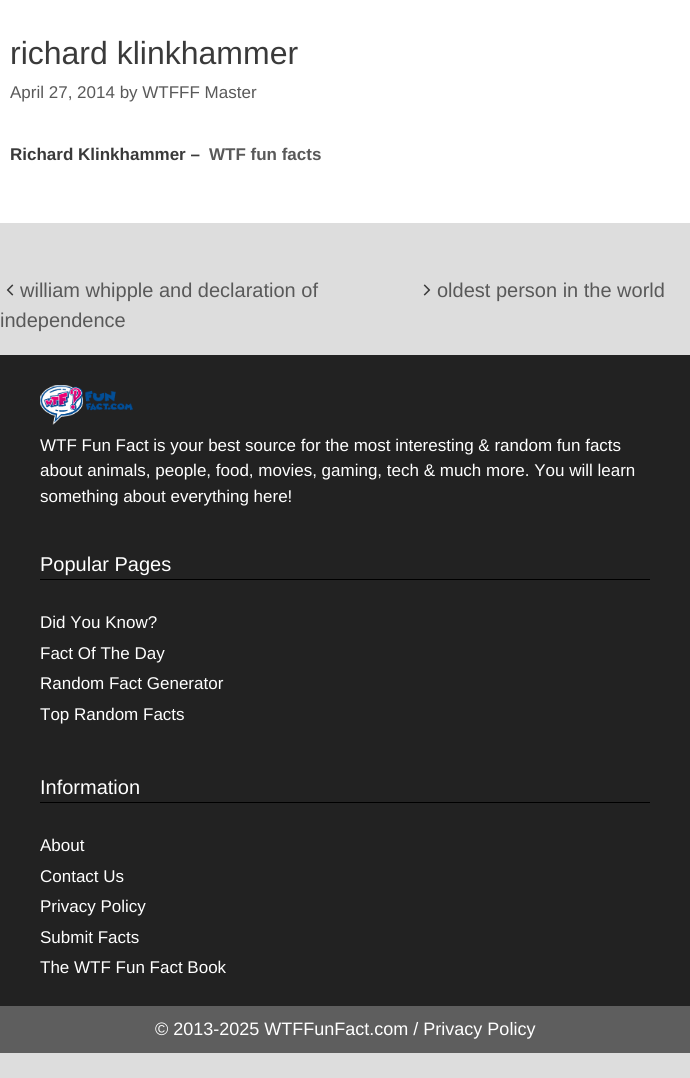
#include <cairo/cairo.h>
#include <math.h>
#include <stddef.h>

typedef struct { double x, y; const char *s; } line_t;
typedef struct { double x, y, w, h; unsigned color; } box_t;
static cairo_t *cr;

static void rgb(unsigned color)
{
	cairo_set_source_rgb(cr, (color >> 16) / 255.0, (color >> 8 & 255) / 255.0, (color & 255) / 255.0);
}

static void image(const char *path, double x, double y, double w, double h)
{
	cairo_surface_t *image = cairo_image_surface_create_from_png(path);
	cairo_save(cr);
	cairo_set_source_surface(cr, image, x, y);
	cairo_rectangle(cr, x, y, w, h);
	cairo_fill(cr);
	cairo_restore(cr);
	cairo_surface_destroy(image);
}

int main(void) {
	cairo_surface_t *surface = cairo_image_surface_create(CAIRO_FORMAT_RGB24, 690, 1078);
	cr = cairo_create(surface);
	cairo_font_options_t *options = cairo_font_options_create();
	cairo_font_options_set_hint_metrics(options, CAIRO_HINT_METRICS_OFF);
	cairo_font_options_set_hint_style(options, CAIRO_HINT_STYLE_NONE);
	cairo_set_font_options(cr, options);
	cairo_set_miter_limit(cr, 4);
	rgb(0xdddddd);
	cairo_paint(cr);
	rgb(0xffffff);
	cairo_rectangle(cr, 0, 0, 690, 223);
	cairo_fill(cr);
	image("img/1.png", 6, 284, 8, 12);
	image("img/2.png", 423, 284, 8, 12);
	rgb(0x222222);
	cairo_rectangle(cr, 0, 355, 690, 651);
	cairo_fill(cr);
	image("img/3.png", 40, 385, 93, 40);
	{
		static const box_t items[] = {
			{40, 579, 610, 1, 0x000000},
			{40, 802, 610, 1, 0x000000},
			{0, 1006, 690, 47, 0x5e5e5e},
		};
		for (size_t i = 0; i < sizeof items / sizeof *items; i++) {
			rgb(items[i].color);
			cairo_rectangle(cr, items[i].x, items[i].y, items[i].w, items[i].h);
			cairo_fill(cr);
		}
	}
	cairo_select_font_face(cr, "Liberation Sans", CAIRO_FONT_SLANT_NORMAL, CAIRO_FONT_WEIGHT_NORMAL);
	cairo_set_font_size(cr, 32);
	rgb(0x3a3a3a);
	cairo_move_to(cr, 10, 64);
	cairo_show_text(cr, "richard klinkhammer");
	cairo_set_font_size(cr, 17);
	rgb(0x595959);
	cairo_move_to(cr, 10, 98);
	cairo_show_text(cr, "April 27, 2014 by WTFFF Master");
	cairo_select_font_face(cr, "Liberation Sans", CAIRO_FONT_SLANT_NORMAL, CAIRO_FONT_WEIGHT_BOLD);
	rgb(0x3a3a3a);
	cairo_move_to(cr, 10, 160);
	cairo_show_text(cr, "Richard Klinkhammer –");
	rgb(0x595959);
	cairo_move_to(cr, 209, 160);
	cairo_show_text(cr, "WTF fun facts");
	cairo_select_font_face(cr, "Liberation Sans", CAIRO_FONT_SLANT_NORMAL, CAIRO_FONT_WEIGHT_NORMAL);
	cairo_set_font_size(cr, 20);
	{
		static const line_t items[] = {
			{20, 297, "william whipple and declaration of"},
			{0, 327, "independence"},
			{437, 297, "oldest person in the world"},
		};
		for (size_t i = 0; i < sizeof items / sizeof *items; i++) {
			cairo_move_to(cr, items[i].x, items[i].y);
			cairo_show_text(cr, items[i].s);
		}
	}
	cairo_set_font_size(cr, 17);
	rgb(0xffffff);
	{
		static const line_t items[] = {
			{40, 451, "WTF Fun Fact is your best source for the most interesting & random fun facts"},
			{40, 476, "about animals, people, food, movies, gaming, tech & much more. You will learn"},
			{40, 502, "something about everything here!"},
		};
		for (size_t i = 0; i < sizeof items / sizeof *items; i++) {
			cairo_move_to(cr, items[i].x, items[i].y);
			cairo_show_text(cr, items[i].s);
		}
	}
	cairo_set_font_size(cr, 20);
	cairo_move_to(cr, 40, 571);
	cairo_show_text(cr, "Popular Pages");
	cairo_set_font_size(cr, 17);
	{
		static const line_t items[] = {
			{40, 628, "Did You Know?"},
			{40, 659, "Fact Of The Day"},
			{40, 689, "Random Fact Generator"},
			{40, 720, "Top Random Facts"},
		};
		for (size_t i = 0; i < sizeof items / sizeof *items; i++) {
			cairo_move_to(cr, items[i].x, items[i].y);
			cairo_show_text(cr, items[i].s);
		}
	}
	cairo_set_font_size(cr, 20);
	cairo_move_to(cr, 40, 794);
	cairo_show_text(cr, "Information");
	cairo_set_font_size(cr, 17);
	{
		static const line_t items[] = {
			{40, 851, "About"},
			{40, 882, "Contact Us"},
			{40, 912, "Privacy Policy"},
			{40, 943, "Submit Facts"},
			{40, 973, "The WTF Fun Fact Book"},
		};
		for (size_t i = 0; i < sizeof items / sizeof *items; i++) {
			cairo_move_to(cr, items[i].x, items[i].y);
			cairo_show_text(cr, items[i].s);
		}
	}
	cairo_set_font_size(cr, 18);
	cairo_move_to(cr, 155, 1035);
	cairo_show_text(cr, "© 2013-2025 WTFFunFact.com / Privacy Policy");
	cairo_surface_write_to_png(surface, "page.png");
	cairo_font_options_destroy(options);
	cairo_destroy(cr);
	cairo_surface_destroy(surface);
	return 0;
}
